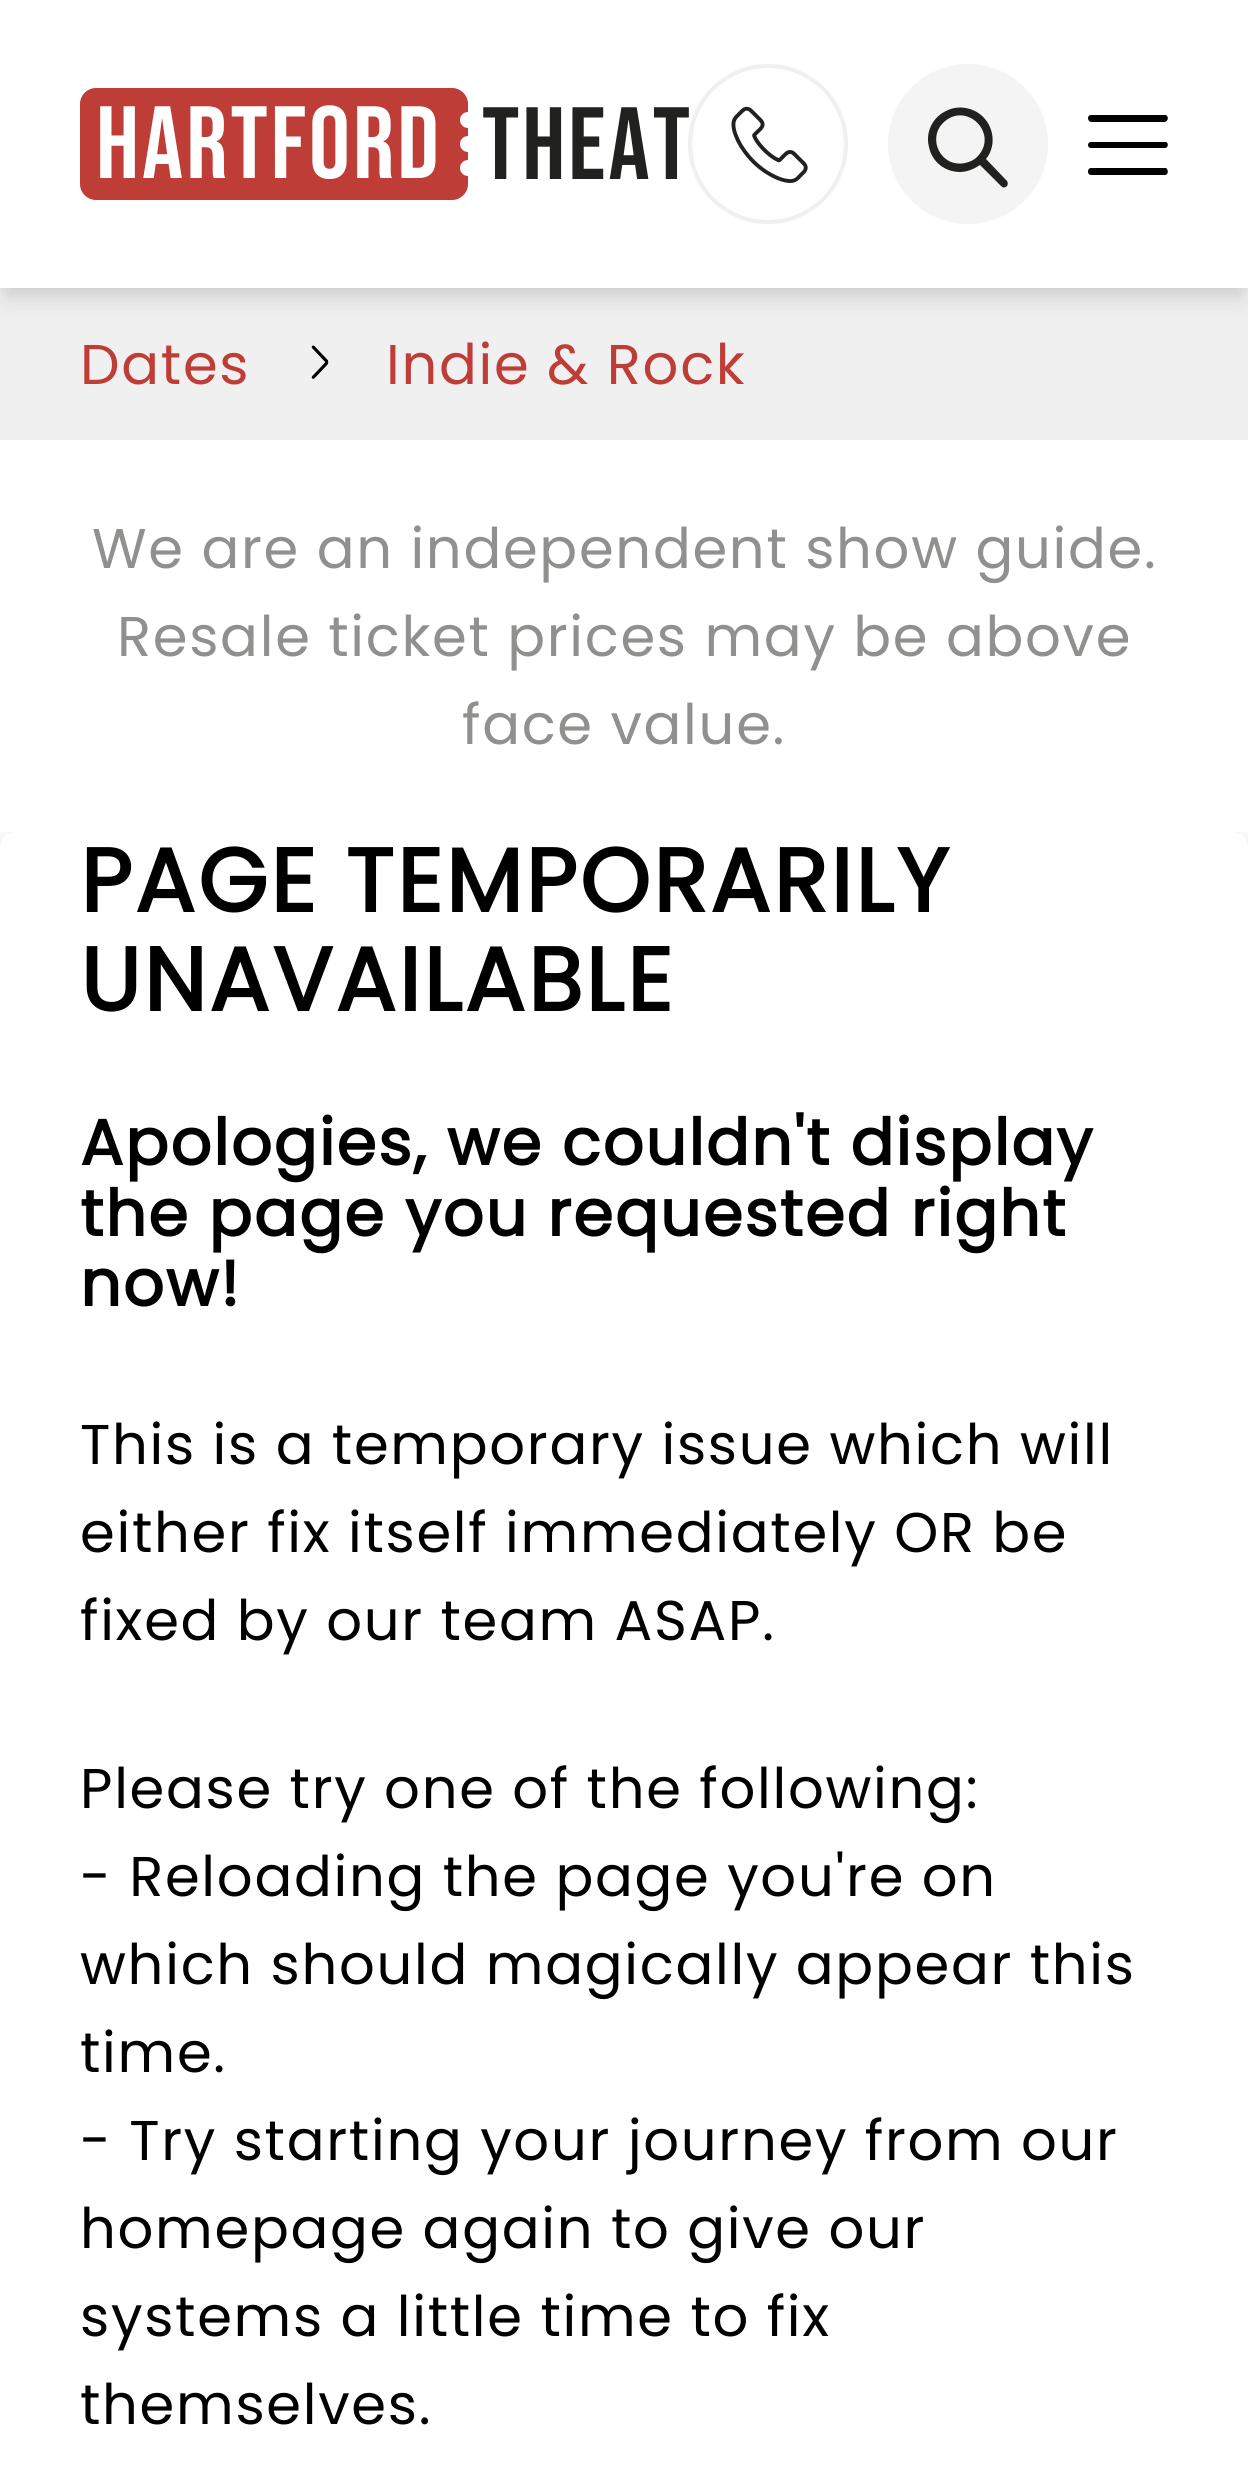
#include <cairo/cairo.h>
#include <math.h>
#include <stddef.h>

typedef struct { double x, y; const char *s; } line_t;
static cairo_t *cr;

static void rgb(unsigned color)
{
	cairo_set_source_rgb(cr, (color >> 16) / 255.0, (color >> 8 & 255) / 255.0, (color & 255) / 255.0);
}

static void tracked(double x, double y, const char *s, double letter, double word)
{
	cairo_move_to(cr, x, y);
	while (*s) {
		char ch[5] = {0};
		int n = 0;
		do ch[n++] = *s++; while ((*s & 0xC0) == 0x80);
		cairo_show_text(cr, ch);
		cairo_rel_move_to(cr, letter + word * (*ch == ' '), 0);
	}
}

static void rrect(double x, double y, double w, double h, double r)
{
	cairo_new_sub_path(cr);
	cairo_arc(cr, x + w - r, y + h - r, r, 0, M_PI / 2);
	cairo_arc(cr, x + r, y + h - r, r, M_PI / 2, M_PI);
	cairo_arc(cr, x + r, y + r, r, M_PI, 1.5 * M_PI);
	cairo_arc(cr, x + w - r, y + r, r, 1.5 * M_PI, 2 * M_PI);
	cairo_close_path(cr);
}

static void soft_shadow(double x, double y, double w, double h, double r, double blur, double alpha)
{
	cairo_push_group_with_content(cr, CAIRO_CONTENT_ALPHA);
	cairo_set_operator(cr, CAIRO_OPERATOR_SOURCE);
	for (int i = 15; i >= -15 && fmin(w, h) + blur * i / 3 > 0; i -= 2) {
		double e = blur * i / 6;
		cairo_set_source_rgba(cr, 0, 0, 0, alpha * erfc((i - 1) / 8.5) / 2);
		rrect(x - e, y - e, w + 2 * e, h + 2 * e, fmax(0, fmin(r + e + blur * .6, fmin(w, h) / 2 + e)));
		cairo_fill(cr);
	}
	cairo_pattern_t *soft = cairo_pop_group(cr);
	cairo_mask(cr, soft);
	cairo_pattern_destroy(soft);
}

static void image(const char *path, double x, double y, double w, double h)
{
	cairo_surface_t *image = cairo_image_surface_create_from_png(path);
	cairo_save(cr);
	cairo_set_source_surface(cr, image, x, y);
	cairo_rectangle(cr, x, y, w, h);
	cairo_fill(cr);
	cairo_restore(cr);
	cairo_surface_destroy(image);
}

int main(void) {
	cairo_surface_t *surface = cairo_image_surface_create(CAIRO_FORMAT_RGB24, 1248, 2483);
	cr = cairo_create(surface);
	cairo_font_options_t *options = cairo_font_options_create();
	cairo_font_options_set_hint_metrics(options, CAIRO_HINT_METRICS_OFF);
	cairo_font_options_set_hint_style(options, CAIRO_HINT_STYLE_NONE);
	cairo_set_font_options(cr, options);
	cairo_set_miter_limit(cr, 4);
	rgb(0xf8f8f8);
	cairo_paint(cr);
	rgb(0xf0f0f0);
	cairo_rectangle(cr, 0, 288, 1248, 152);
	cairo_fill(cr);
	rgb(0x000000);
	soft_shadow(8, 16, 1232, 272, 0, 8, 0.1);
	soft_shadow(4, 20, 1240, 280, 0, 12, 0.1);
	rgb(0xffffff);
	cairo_rectangle(cr, 0, 0, 1248, 288);
	cairo_fill(cr);
	rgb(0xbf3d37);
	rrect(80, 88, 388, 112, 16);
	cairo_fill(cr);
	rgb(0xffffff);
	cairo_arc(cr, 468, 120, 8, 0, 2 * M_PI);
	cairo_fill(cr);
	cairo_arc(cr, 468, 144, 8, 0, 2 * M_PI);
	cairo_fill(cr);
	cairo_arc(cr, 468, 168, 8, 0, 2 * M_PI);
	cairo_fill(cr);
	rgb(0xf4f4f4);
	cairo_arc(cr, 968, 144, 80, 0, 2 * M_PI);
	cairo_fill(cr);
	rgb(0x212120);
	cairo_new_path(cr);
	cairo_move_to(cr, 960, 172);
	cairo_curve_to(cr, 967, 172, 974, 169, 980, 165);
	cairo_line_to(cr, 1001, 186);
	cairo_curve_to(cr, 1003, 188, 1005, 188, 1007, 186);
	cairo_curve_to(cr, 1008, 185, 1008, 182, 1007, 181);
	cairo_line_to(cr, 986, 159);
	cairo_curve_to(cr, 995, 148, 995, 131, 985, 119);
	cairo_curve_to(cr, 976, 108, 959, 104, 946, 111);
	cairo_curve_to(cr, 933, 117, 925, 132, 929, 147);
	cairo_curve_to(cr, 932, 162, 945, 172, 960, 172);
	cairo_close_path(cr);
	cairo_move_to(cr, 943, 123);
	cairo_curve_to(cr, 966, 100, 1000, 134, 977, 157);
	cairo_curve_to(cr, 974, 160, 970, 162, 965, 163);
	cairo_curve_to(cr, 941, 168, 927, 139, 943, 123);
	cairo_close_path(cr);
	cairo_fill(cr);
	rgb(0x000000);
	cairo_new_path(cr);
	cairo_move_to(cr, 1165, 122);
	cairo_line_to(cr, 1091, 122);
	cairo_curve_to(cr, 1087, 121, 1087, 115, 1091, 115);
	cairo_line_to(cr, 1166, 115);
	cairo_curve_to(cr, 1169, 117, 1168, 121, 1165, 122);
	cairo_close_path(cr);
	cairo_move_to(cr, 1165, 148);
	cairo_line_to(cr, 1091, 148);
	cairo_curve_to(cr, 1087, 148, 1087, 142, 1091, 142);
	cairo_line_to(cr, 1166, 142);
	cairo_curve_to(cr, 1169, 143, 1168, 148, 1165, 148);
	cairo_close_path(cr);
	cairo_move_to(cr, 1165, 175);
	cairo_line_to(cr, 1091, 175);
	cairo_curve_to(cr, 1087, 175, 1087, 168, 1091, 168);
	cairo_line_to(cr, 1166, 168);
	cairo_curve_to(cr, 1169, 170, 1168, 175, 1165, 175);
	cairo_close_path(cr);
	cairo_fill(cr);
	image("img/2.png", 311, 345, 18, 34);
	rgb(0xffffff);
	cairo_rectangle(cr, 0, 440, 1248, 392);
	cairo_fill(cr);
	rrect(0, 832, 1248, 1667, 16);
	cairo_fill(cr);
	cairo_select_font_face(cr, "Bebas Neue", CAIRO_FONT_SLANT_NORMAL, CAIRO_FONT_WEIGHT_NORMAL);
	cairo_set_font_size(cr, 102.5);
	tracked(96, 178, "Hartford", 3, 0);
	rgb(0x212120);
	tracked(482, 179, "Theat", 3, 0);
	cairo_new_path(cr);
	cairo_arc(cr, 768, 144, 78, 0, 2 * M_PI);
	rgb(0xf0f0f0);
	cairo_set_line_width(cr, 4);
	cairo_stroke(cr);
	image("img/1.png", 731, 106, 77, 77);
	cairo_select_font_face(cr, "Poppins", CAIRO_FONT_SLANT_NORMAL, CAIRO_FONT_WEIGHT_NORMAL);
	cairo_set_font_size(cr, 56);
	rgb(0xbf3d37);
	tracked(80, 384, "Dates", 1.7, 0);
	tracked(386, 384, "Indie & Rock", 1.7, 0);
	rgb(0x90908f);
	{
		static const line_t items[] = {
			{92, 568, "We are an independent show guide."},
			{117, 656, "Resale ticket prices may be above"},
			{462, 744, "face value."},
		};
		for (size_t i = 0; i < sizeof items / sizeof *items; i++) {
			tracked(items[i].x, items[i].y, items[i].s, 1.7, 0);
		}
	}
	cairo_select_font_face(cr, "Poppins", CAIRO_FONT_SLANT_NORMAL, CAIRO_FONT_WEIGHT_BOLD);
	cairo_set_font_size(cr, 89.5);
	rgb(0x000000);
	tracked(80, 912, "PAGE TEMPORARILY", 2.75, 0);
	tracked(80, 1011, "UNAVAILABLE", 2.75, 0);
	cairo_set_font_size(cr, 64);
	{
		static const line_t items[] = {
			{80, 1165, "Apologies, we couldn't display"},
			{80, 1236, "the page you requested right"},
			{80, 1306, "now!"},
		};
		for (size_t i = 0; i < sizeof items / sizeof *items; i++) {
			tracked(items[i].x, items[i].y, items[i].s, 1.9, 0);
		}
	}
	cairo_select_font_face(cr, "Poppins", CAIRO_FONT_SLANT_NORMAL, CAIRO_FONT_WEIGHT_NORMAL);
	cairo_set_font_size(cr, 56);
	{
		static const line_t items[] = {
			{80, 1464, "This is a temporary issue which will"},
			{80, 1552, "either fix itself immediately OR be"},
			{80, 1640, "fixed by our team ASAP."},
			{80, 1808, "Please try one of the following:"},
			{80, 1896, "- Reloading the page you're on"},
			{80, 1984, "which should magically appear this"},
			{80, 2072, "time."},
			{80, 2160, "- Try starting your journey from our"},
			{80, 2248, "homepage again to give our"},
			{80, 2336, "systems a little time to fix"},
			{80, 2424, "themselves."},
		};
		for (size_t i = 0; i < sizeof items / sizeof *items; i++) {
			tracked(items[i].x, items[i].y, items[i].s, 1.7, 0);
		}
	}
	cairo_surface_write_to_png(surface, "page.png");
	cairo_font_options_destroy(options);
	cairo_destroy(cr);
	cairo_surface_destroy(surface);
	return 0;
}
